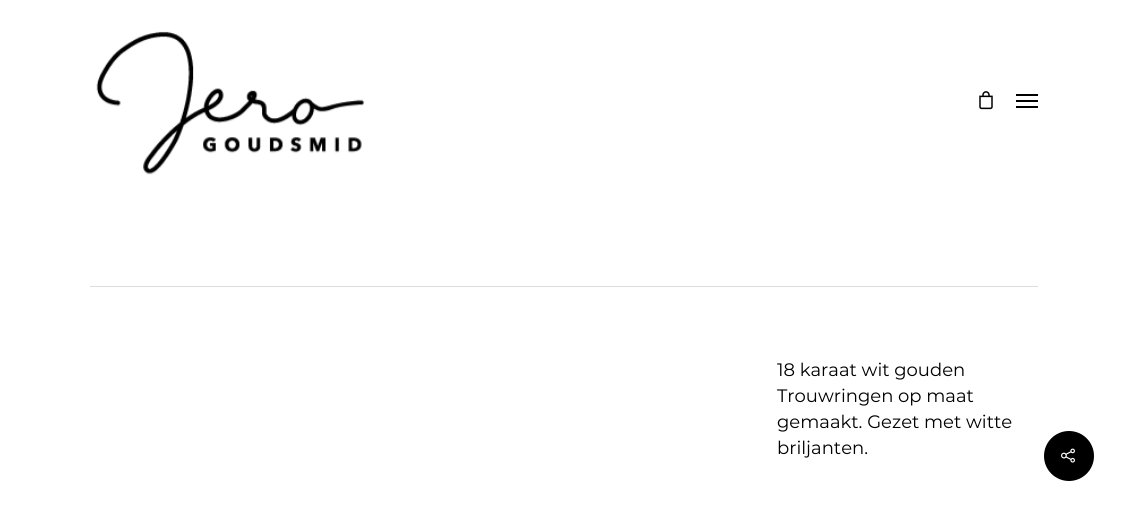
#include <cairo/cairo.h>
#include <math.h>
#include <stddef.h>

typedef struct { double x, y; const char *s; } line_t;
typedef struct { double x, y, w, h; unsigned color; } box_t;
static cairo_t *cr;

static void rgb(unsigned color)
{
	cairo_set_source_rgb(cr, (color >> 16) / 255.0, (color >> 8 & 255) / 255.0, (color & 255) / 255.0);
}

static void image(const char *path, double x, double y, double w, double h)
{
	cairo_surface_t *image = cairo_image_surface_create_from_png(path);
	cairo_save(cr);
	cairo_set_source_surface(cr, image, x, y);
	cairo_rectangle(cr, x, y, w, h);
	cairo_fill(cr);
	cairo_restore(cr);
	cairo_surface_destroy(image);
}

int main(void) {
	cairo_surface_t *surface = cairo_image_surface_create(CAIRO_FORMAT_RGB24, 1128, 515);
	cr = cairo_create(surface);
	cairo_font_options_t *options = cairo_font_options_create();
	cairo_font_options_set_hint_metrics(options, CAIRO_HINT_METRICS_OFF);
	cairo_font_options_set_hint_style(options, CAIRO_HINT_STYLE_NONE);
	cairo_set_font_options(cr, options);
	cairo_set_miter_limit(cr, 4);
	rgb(0xffffff);
	cairo_paint(cr);
	image("img/1.png", 96, 31, 269, 144);
	image("img/2.png", 979, 91, 14, 19);
	{
		static const box_t items[] = {
			{1016, 94, 22, 2, 0x000000},
			{1016, 106, 22, 2, 0x000000},
			{1016, 100, 22, 2, 0x000000},
			{90, 286, 948, 1, 0xdddddd},
		};
		for (size_t i = 0; i < sizeof items / sizeof *items; i++) {
			rgb(items[i].color);
			cairo_rectangle(cr, items[i].x, items[i].y, items[i].w, items[i].h);
			cairo_fill(cr);
		}
	}
	rgb(0x000000);
	cairo_arc(cr, 1069, 456, 25, 0, 2 * M_PI);
	cairo_fill(cr);
	image("img/3.png", 1061, 448, 14, 15);
	cairo_select_font_face(cr, "Montserrat", CAIRO_FONT_SLANT_NORMAL, CAIRO_FONT_WEIGHT_NORMAL);
	cairo_set_font_size(cr, 18);
	{
		static const line_t items[] = {
			{777, 376, "18 karaat wit gouden"},
			{777, 402, "Trouwringen op maat"},
			{777, 428, "gemaakt. Gezet met witte"},
			{777, 454, "briljanten."},
		};
		for (size_t i = 0; i < sizeof items / sizeof *items; i++) {
			cairo_move_to(cr, items[i].x, items[i].y);
			cairo_show_text(cr, items[i].s);
		}
	}
	cairo_surface_write_to_png(surface, "page.png");
	cairo_font_options_destroy(options);
	cairo_destroy(cr);
	cairo_surface_destroy(surface);
	return 0;
}
